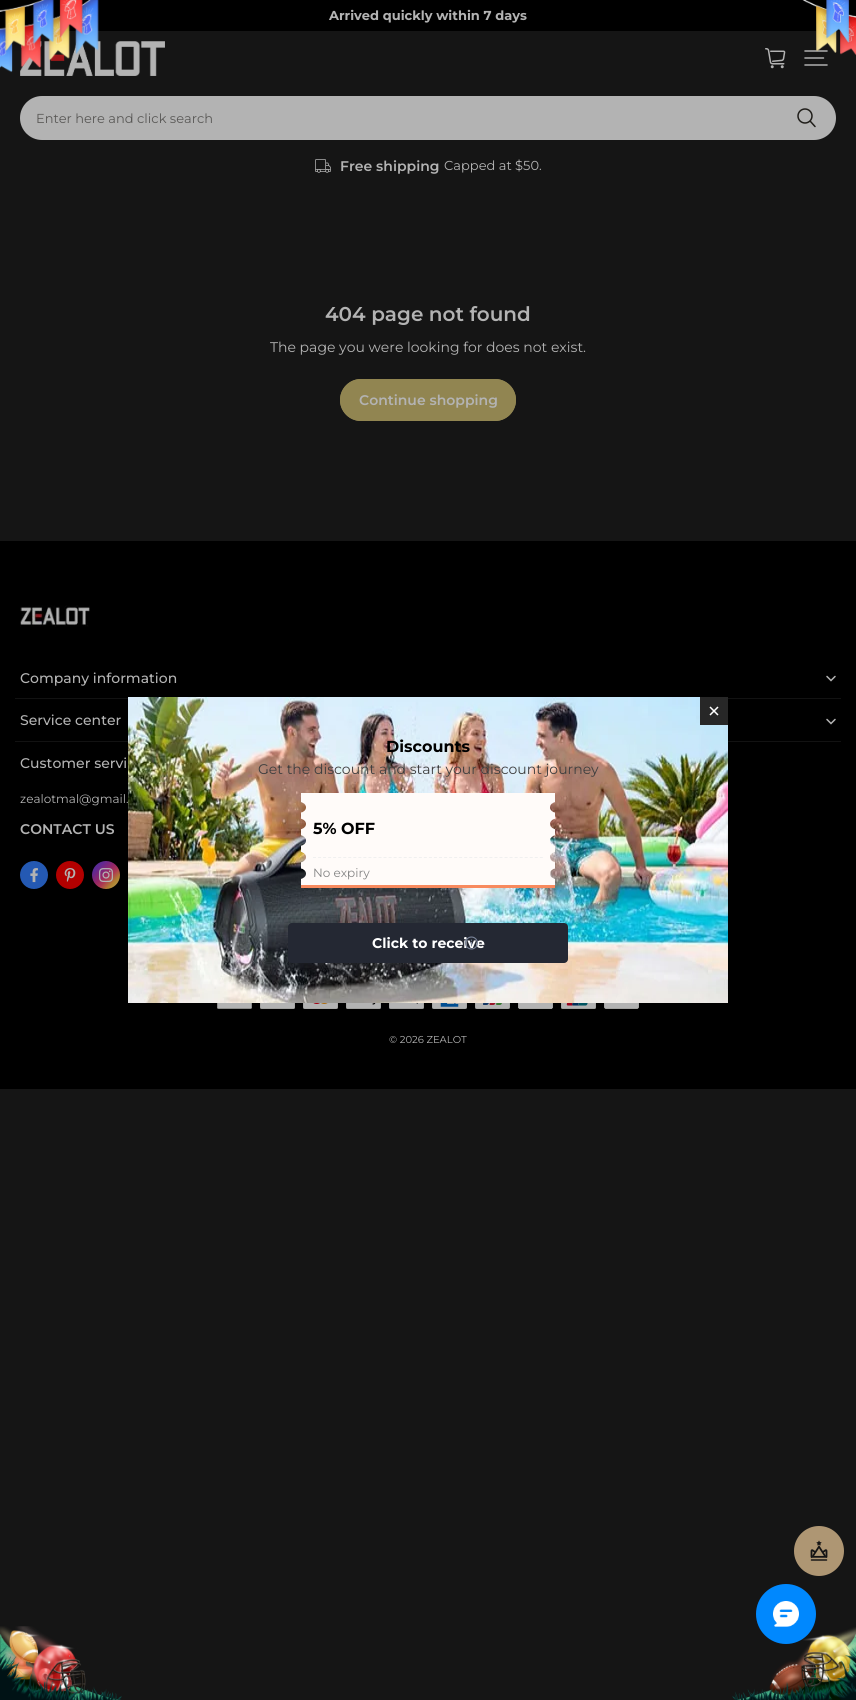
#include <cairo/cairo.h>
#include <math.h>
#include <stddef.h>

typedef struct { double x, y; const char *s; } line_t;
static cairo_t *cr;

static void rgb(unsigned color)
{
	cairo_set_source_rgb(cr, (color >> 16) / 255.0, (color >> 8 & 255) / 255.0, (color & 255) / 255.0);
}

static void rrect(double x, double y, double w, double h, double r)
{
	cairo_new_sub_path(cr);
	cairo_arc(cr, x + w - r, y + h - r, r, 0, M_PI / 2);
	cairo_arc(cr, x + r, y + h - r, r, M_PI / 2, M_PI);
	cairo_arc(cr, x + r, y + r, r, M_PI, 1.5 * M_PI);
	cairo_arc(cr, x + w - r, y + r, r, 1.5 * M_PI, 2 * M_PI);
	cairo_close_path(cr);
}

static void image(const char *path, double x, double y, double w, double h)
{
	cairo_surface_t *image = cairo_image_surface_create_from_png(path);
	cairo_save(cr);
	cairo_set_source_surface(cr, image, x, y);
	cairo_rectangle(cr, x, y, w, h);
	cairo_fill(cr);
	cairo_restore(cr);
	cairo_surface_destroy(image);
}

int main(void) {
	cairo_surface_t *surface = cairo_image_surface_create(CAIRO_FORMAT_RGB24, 856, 1700);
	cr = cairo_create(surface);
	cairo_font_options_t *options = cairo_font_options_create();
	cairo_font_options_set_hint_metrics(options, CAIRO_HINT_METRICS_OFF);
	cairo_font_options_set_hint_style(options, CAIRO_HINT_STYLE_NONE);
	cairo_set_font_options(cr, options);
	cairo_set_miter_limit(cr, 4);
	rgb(0x151515);
	cairo_paint(cr);
	rgb(0x000000);
	cairo_rectangle(cr, 0, 0, 856, 31);
	cairo_fill(cr);
	image("img/5.png", 20, 41, 145, 35);
	image("img/1.png", 0, 0, 99, 73);
	cairo_new_path(cr);
	cairo_move_to(cr, 805, 51);
	cairo_line_to(cr, 827, 51);
	cairo_move_to(cr, 805, 58);
	cairo_line_to(cr, 823.5, 58);
	cairo_move_to(cr, 805, 65);
	cairo_line_to(cr, 827, 65);
	rgb(0xb3b3b3);
	cairo_set_line_width(cr, 1.5);
	cairo_set_line_cap(cr, CAIRO_LINE_CAP_ROUND);
	cairo_stroke(cr);
	image("img/2.png", 802, 0, 54, 55);
	image("img/3.png", 0, 1626, 122, 74);
	rgb(0x0088fe);
	cairo_arc(cr, 786, 1614, 30, 0, 2 * M_PI);
	cairo_fill(cr);
	image("img/4.png", 732, 1627, 124, 73);
	image("img/6.png", 765, 48, 21, 21);
	rgb(0xb3b3b3);
	rrect(20, 96, 816, 44, 22);
	cairo_fill(cr);
	cairo_arc(cr, 805, 116, 7, 0, 2 * M_PI);
	rgb(0x1f1d19);
	cairo_set_line_cap(cr, CAIRO_LINE_CAP_BUTT);
	cairo_stroke(cr);
	cairo_new_path(cr);
	cairo_move_to(cr, 810.5, 121.5);
	cairo_line_to(cr, 815, 126.5);
	cairo_set_line_cap(cr, CAIRO_LINE_CAP_ROUND);
	cairo_stroke(cr);
	image("img/7.png", 315, 159, 16, 14);
	rgb(0x918551);
	rrect(340, 379, 176, 42, 21);
	cairo_fill(cr);
	rrect(340.5, 379.5, 175, 41, 20.5);
	cairo_set_line_width(cr, 1);
	cairo_set_line_cap(cr, CAIRO_LINE_CAP_BUTT);
	cairo_stroke(cr);
	rgb(0x000000);
	cairo_rectangle(cr, 0, 541, 856, 548);
	cairo_fill(cr);
	image("img/8.png", 20, 605, 70, 22);
	cairo_new_path(cr);
	cairo_move_to(cr, 827, 676.5);
	cairo_line_to(cr, 831, 680.5);
	cairo_line_to(cr, 835, 676.5);
	rgb(0xb3b3b3);
	cairo_set_line_width(cr, 1.5);
	cairo_set_line_cap(cr, CAIRO_LINE_CAP_ROUND);
	cairo_stroke(cr);
	rgb(0x121212);
	cairo_rectangle(cr, 15, 698, 826, 1);
	cairo_fill(cr);
	cairo_new_path(cr);
	cairo_move_to(cr, 827, 719.5);
	cairo_line_to(cr, 831, 723.5);
	cairo_line_to(cr, 835, 719.5);
	rgb(0xb3b3b3);
	cairo_stroke(cr);
	rgb(0x121212);
	cairo_rectangle(cr, 15, 741, 826, 1);
	cairo_fill(cr);
	image("img/9.png", 20, 861, 28, 28);
	image("img/10.png", 56, 861, 28, 28);
	image("img/11.png", 92, 861, 28, 28);
	image("img/13.png", 217, 1003, 35, 6);
	image("img/14.png", 260, 1003, 35, 6);
	image("img/15.png", 303, 1003, 35, 6);
	image("img/16.png", 346, 1003, 35, 6);
	image("img/17.png", 389, 1003, 35, 6);
	image("img/18.png", 432, 1003, 35, 6);
	image("img/19.png", 475, 1003, 35, 6);
	image("img/20.png", 518, 1003, 35, 6);
	image("img/21.png", 561, 1003, 35, 6);
	image("img/22.png", 604, 1003, 35, 6);
	image("img/23.png", 128, 697, 600, 306);
	rgb(0x272727);
	cairo_rectangle(cr, 700, 697, 28, 28);
	cairo_fill(cr);
	cairo_new_path(cr);
	cairo_move_to(cr, 718, 707);
	cairo_line_to(cr, 710, 715);
	cairo_move_to(cr, 710, 707);
	cairo_line_to(cr, 718, 715);
	rgb(0xffffff);
	cairo_set_line_cap(cr, CAIRO_LINE_CAP_BUTT);
	cairo_stroke(cr);
	image("img/24.png", 301, 793, 12, 92);
	rgb(0xfffbf9);
	cairo_rectangle(cr, 313, 793, 230, 92);
	cairo_fill(cr);
	cairo_new_path(cr);
	cairo_move_to(cr, 313, 857.5);
	cairo_line_to(cr, 543, 857.5);
	rgb(0xf0f0f0);
	cairo_set_line_width(cr, 1);
	cairo_set_dash(cr, (double[]){3, 2.04}, 2, 0);
	cairo_stroke(cr);
	image("img/25.png", 543, 793, 12, 92);
	rgb(0xf88a5e);
	cairo_rectangle(cr, 301, 885, 254, 3);
	cairo_fill(cr);
	rgb(0x242833);
	rrect(288, 923, 280, 40, 4);
	cairo_fill(cr);
	rgb(0xae9673);
	cairo_arc(cr, 819, 1551, 25, 0, 2 * M_PI);
	cairo_fill(cr);
	image("img/26.png", 810, 1540, 18, 21);
	image("img/27.png", 773, 1601, 26, 26);
	cairo_select_font_face(cr, "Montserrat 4 Thin", CAIRO_FONT_SLANT_NORMAL, CAIRO_FONT_WEIGHT_NORMAL);
	cairo_set_font_size(cr, 13);
	rgb(0xb3b3b3);
	cairo_move_to(cr, 329, 20);
	cairo_show_text(cr, "Arrived quickly within 7 days");
	cairo_select_font_face(cr, "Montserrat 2 Thin", CAIRO_FONT_SLANT_NORMAL, CAIRO_FONT_WEIGHT_NORMAL);
	rgb(0x5a5957);
	cairo_move_to(cr, 36, 123);
	cairo_show_text(cr, "Enter here and click search");
	cairo_select_font_face(cr, "Montserrat Thin", CAIRO_FONT_SLANT_NORMAL, CAIRO_FONT_WEIGHT_NORMAL);
	cairo_set_font_size(cr, 14);
	rgb(0xb3b3b3);
	cairo_move_to(cr, 340, 171);
	cairo_show_text(cr, "Free shipping");
	cairo_select_font_face(cr, "Montserrat 2 Thin", CAIRO_FONT_SLANT_NORMAL, CAIRO_FONT_WEIGHT_NORMAL);
	cairo_set_font_size(cr, 13);
	cairo_move_to(cr, 444, 170);
	cairo_show_text(cr, "Capped at $50.");
	cairo_select_font_face(cr, "Montserrat Thin", CAIRO_FONT_SLANT_NORMAL, CAIRO_FONT_WEIGHT_NORMAL);
	cairo_set_font_size(cr, 20);
	cairo_move_to(cr, 325, 321);
	cairo_show_text(cr, "404 page not found");
	cairo_select_font_face(cr, "Montserrat 2 Thin", CAIRO_FONT_SLANT_NORMAL, CAIRO_FONT_WEIGHT_NORMAL);
	cairo_set_font_size(cr, 14);
	cairo_move_to(cr, 270, 352);
	cairo_show_text(cr, "The page you were looking for does not exist.");
	cairo_select_font_face(cr, "Montserrat Thin", CAIRO_FONT_SLANT_NORMAL, CAIRO_FONT_WEIGHT_NORMAL);
	cairo_move_to(cr, 359, 405);
	cairo_show_text(cr, "Continue shopping");
	cairo_select_font_face(cr, "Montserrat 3 Thin", CAIRO_FONT_SLANT_NORMAL, CAIRO_FONT_WEIGHT_NORMAL);
	{
		static const line_t items[] = {
			{20, 683, "Company information"},
			{20, 725, "Service center"},
			{20, 768, "Customer servi"},
		};
		for (size_t i = 0; i < sizeof items / sizeof *items; i++) {
			cairo_move_to(cr, items[i].x, items[i].y);
			cairo_show_text(cr, items[i].s);
		}
	}
	cairo_select_font_face(cr, "Montserrat 2 Thin", CAIRO_FONT_SLANT_NORMAL, CAIRO_FONT_WEIGHT_NORMAL);
	cairo_set_font_size(cr, 12);
	cairo_move_to(cr, 20, 803);
	cairo_show_text(cr, "zealotmal@gmail.");
	cairo_select_font_face(cr, "Montserrat Thin", CAIRO_FONT_SLANT_NORMAL, CAIRO_FONT_WEIGHT_NORMAL);
	cairo_set_font_size(cr, 14);
	cairo_move_to(cr, 20, 834);
	cairo_show_text(cr, "CONTACT US");
	cairo_select_font_face(cr, "Montserrat 2 Thin", CAIRO_FONT_SLANT_NORMAL, CAIRO_FONT_WEIGHT_NORMAL);
	cairo_set_font_size(cr, 10);
	cairo_move_to(cr, 389, 1043);
	cairo_show_text(cr, "© 2026 ZEALOT");
	cairo_select_font_face(cr, "Montserrat 4 Thin", CAIRO_FONT_SLANT_NORMAL, CAIRO_FONT_WEIGHT_NORMAL);
	cairo_set_font_size(cr, 16);
	rgb(0x000000);
	cairo_move_to(cr, 386, 752);
	cairo_show_text(cr, "Discounts");
	cairo_select_font_face(cr, "Montserrat 2 Thin", CAIRO_FONT_SLANT_NORMAL, CAIRO_FONT_WEIGHT_NORMAL);
	cairo_set_font_size(cr, 14);
	rgb(0x3f3f3f);
	cairo_move_to(cr, 258, 774);
	cairo_show_text(cr, "Get the discount and start your discount journey");
	cairo_select_font_face(cr, "Montserrat 4 Thin", CAIRO_FONT_SLANT_NORMAL, CAIRO_FONT_WEIGHT_NORMAL);
	cairo_set_font_size(cr, 16);
	rgb(0x000000);
	cairo_move_to(cr, 313, 834);
	cairo_show_text(cr, "5% OFF");
	cairo_select_font_face(cr, "Montserrat 2 Thin", CAIRO_FONT_SLANT_NORMAL, CAIRO_FONT_WEIGHT_NORMAL);
	cairo_set_font_size(cr, 12);
	rgb(0x858585);
	cairo_move_to(cr, 313, 877);
	cairo_show_text(cr, "No expiry");
	cairo_select_font_face(cr, "Montserrat 4 Thin", CAIRO_FONT_SLANT_NORMAL, CAIRO_FONT_WEIGHT_NORMAL);
	cairo_set_font_size(cr, 14);
	rgb(0xffffff);
	cairo_move_to(cr, 372, 948);
	cairo_show_text(cr, "Click to receive");
	image("img/12.png", 465, 936, 13, 14);
	cairo_surface_write_to_png(surface, "page.png");
	cairo_font_options_destroy(options);
	cairo_destroy(cr);
	cairo_surface_destroy(surface);
	return 0;
}
